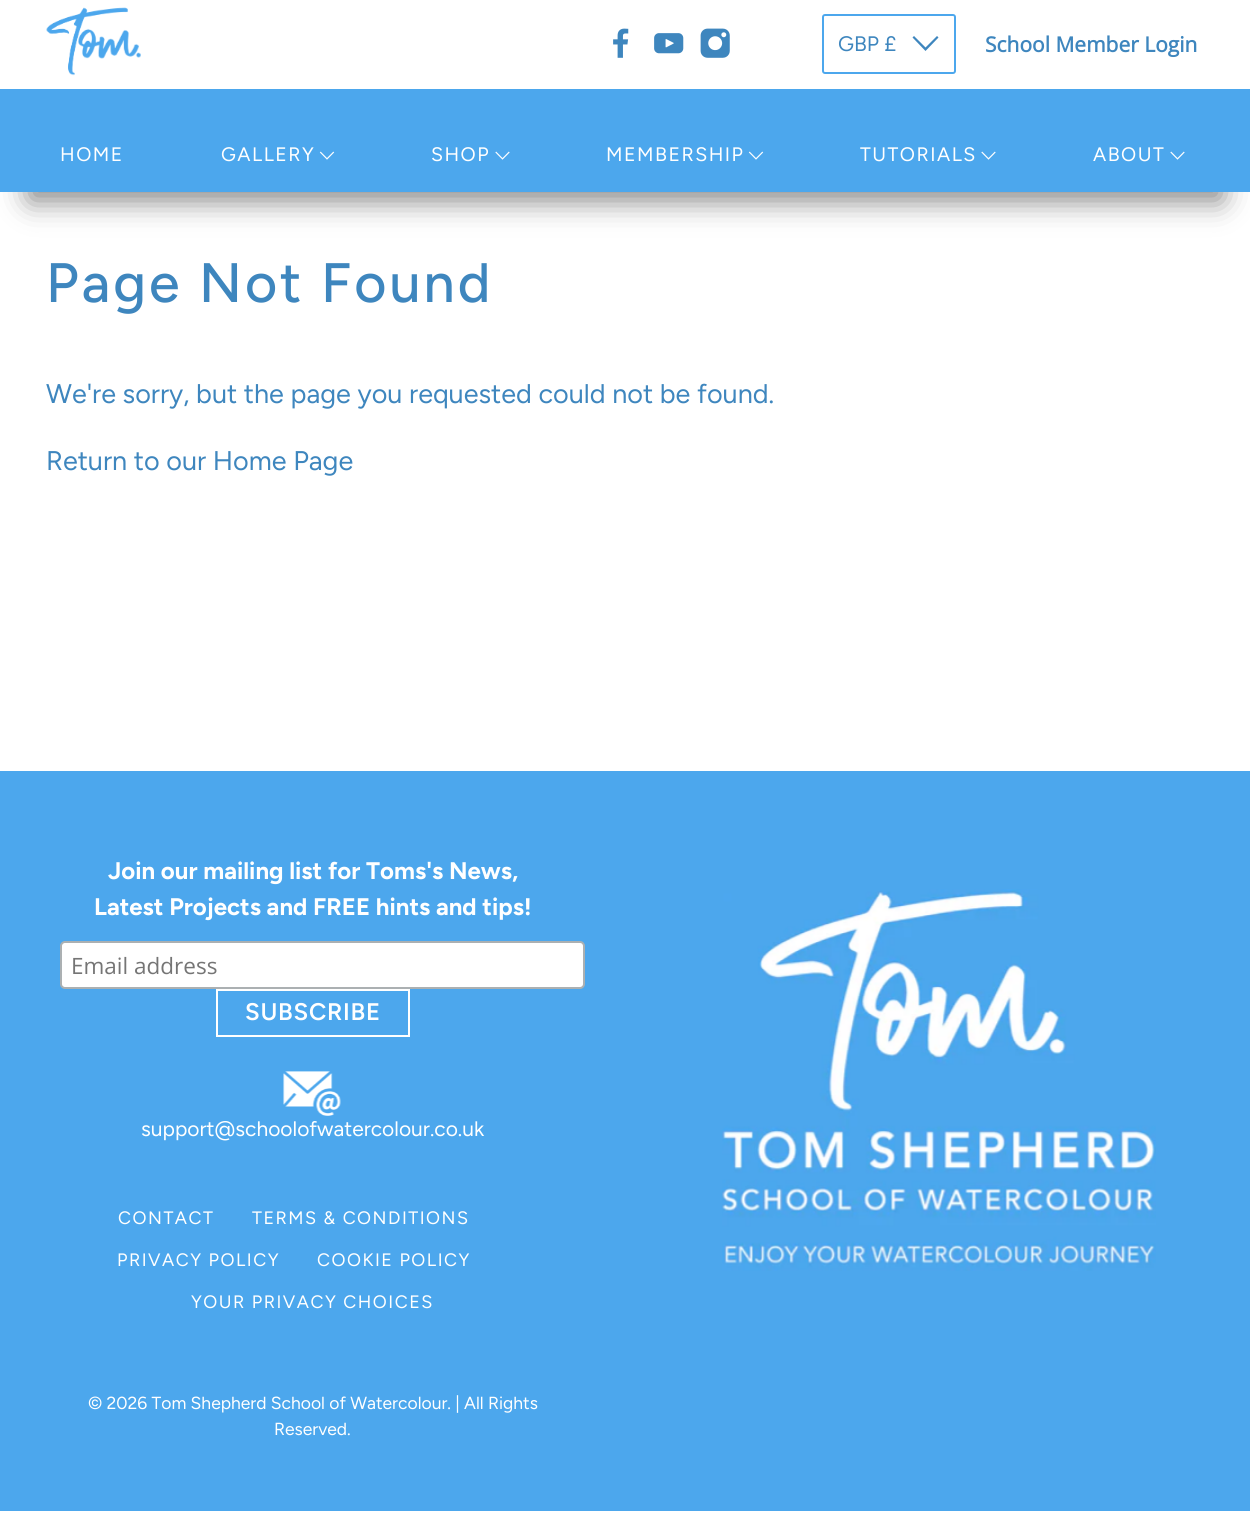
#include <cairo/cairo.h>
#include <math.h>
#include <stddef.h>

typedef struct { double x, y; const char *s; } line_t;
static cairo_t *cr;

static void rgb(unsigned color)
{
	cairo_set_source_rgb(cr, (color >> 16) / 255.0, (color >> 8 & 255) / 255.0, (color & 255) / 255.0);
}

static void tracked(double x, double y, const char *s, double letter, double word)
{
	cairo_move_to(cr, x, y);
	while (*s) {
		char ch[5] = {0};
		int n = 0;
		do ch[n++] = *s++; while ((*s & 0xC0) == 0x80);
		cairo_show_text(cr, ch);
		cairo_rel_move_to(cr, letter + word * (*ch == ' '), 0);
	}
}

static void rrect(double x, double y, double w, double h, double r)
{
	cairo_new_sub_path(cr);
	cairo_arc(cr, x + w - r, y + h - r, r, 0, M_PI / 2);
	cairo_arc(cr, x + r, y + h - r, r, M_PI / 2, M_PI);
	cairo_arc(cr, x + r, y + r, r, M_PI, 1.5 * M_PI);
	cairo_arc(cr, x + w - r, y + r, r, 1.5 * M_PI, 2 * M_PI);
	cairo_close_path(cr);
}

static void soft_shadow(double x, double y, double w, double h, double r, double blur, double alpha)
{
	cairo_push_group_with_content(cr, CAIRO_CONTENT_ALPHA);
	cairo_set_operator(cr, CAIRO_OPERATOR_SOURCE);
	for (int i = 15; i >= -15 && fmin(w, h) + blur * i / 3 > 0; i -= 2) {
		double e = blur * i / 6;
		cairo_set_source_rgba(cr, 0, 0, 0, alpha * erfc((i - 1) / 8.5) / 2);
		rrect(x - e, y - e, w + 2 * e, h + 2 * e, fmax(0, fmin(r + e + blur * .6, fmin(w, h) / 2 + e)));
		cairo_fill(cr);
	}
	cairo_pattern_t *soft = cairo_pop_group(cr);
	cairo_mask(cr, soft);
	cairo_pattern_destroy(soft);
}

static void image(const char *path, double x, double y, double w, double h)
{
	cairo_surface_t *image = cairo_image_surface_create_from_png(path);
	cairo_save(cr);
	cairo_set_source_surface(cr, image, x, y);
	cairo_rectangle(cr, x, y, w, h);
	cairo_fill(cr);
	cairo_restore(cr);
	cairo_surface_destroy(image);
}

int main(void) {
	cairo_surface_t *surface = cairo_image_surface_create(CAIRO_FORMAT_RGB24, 1250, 1531);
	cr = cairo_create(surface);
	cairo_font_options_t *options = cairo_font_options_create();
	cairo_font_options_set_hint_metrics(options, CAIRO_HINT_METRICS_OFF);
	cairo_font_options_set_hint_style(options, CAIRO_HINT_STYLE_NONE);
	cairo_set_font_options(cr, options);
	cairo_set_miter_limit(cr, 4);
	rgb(0xffffff);
	cairo_paint(cr);
	image("img/1.png", 46, 7, 95, 69);
	image("img/2.png", 613, 28, 16, 30);
	image("img/3.png", 654, 33, 30, 21);
	image("img/4.png", 700, 28, 30, 30);
	rrect(823, 15, 132, 58, 2);
	rgb(0x4ca7ed);
	cairo_stroke(cr);
	rgb(0x3e86be);
	cairo_new_path(cr);
	cairo_move_to(cr, 925.5, 51);
	cairo_line_to(cr, 912.5, 37.5);
	cairo_line_to(cr, 914, 36);
	cairo_line_to(cr, 925.5, 47.5);
	cairo_line_to(cr, 937, 36);
	cairo_line_to(cr, 938.5, 37.5);
	cairo_close_path(cr);
	cairo_fill(cr);
	rgb(0x000000);
	soft_shadow(30, 156, 1191, 44, 0, 15, 0.5);
	rgb(0x4ca7ed);
	cairo_rectangle(cr, 0, 89, 1250, 103);
	cairo_fill(cr);
	image("img/5.png", 319, 151, 16, 9);
	image("img/6.png", 495, 151, 15, 9);
	image("img/5.png", 748, 151, 16, 9);
	image("img/6.png", 981, 151, 15, 9);
	image("img/6.png", 1170, 151, 15, 9);
	cairo_rectangle(cr, 0, 771, 1250, 740);
	cairo_fill(cr);
	rgb(0xffffff);
	rrect(61, 942, 523, 46, 4);
	cairo_fill_preserve(cr);
	rgb(0xabb0b2);
	cairo_stroke(cr);
	cairo_rectangle(cr, 217, 990, 192, 46);
	rgb(0xffffff);
	cairo_stroke(cr);
	image("img/7.png", 283, 1071, 58, 45);
	image("img/8.png", 722, 889, 434, 382);
	cairo_select_font_face(cr, "Figtree", CAIRO_FONT_SLANT_NORMAL, CAIRO_FONT_WEIGHT_NORMAL);
	cairo_set_font_size(cr, 21);
	rgb(0x3e86be);
	cairo_move_to(cr, 838, 51);
	cairo_show_text(cr, "GBP £");
	cairo_select_font_face(cr, "Open Sans", CAIRO_FONT_SLANT_NORMAL, CAIRO_FONT_WEIGHT_BOLD);
	cairo_move_to(cr, 985, 52);
	cairo_show_text(cr, "School Member Login");
	cairo_select_font_face(cr, "Figtree", CAIRO_FONT_SLANT_NORMAL, CAIRO_FONT_WEIGHT_NORMAL);
	cairo_set_font_size(cr, 19.5);
	rgb(0xffffff);
	{
		static const line_t items[] = {
			{60, 161, "HOME"},
			{221, 161, "GALLERY"},
			{431, 161, "SHOP"},
			{606, 161, "MEMBERSHIP"},
			{860, 161, "TUTORIALS"},
			{1093, 161, "ABOUT"},
		};
		for (size_t i = 0; i < sizeof items / sizeof *items; i++) {
			tracked(items[i].x, items[i].y, items[i].s, 1.5, 0);
		}
	}
	cairo_select_font_face(cr, "Figtree Medium", CAIRO_FONT_SLANT_NORMAL, CAIRO_FONT_WEIGHT_NORMAL);
	cairo_set_font_size(cr, 55.5);
	rgb(0x3e86be);
	tracked(46, 302, "Page Not Found", 3, 0);
	cairo_select_font_face(cr, "Figtree", CAIRO_FONT_SLANT_NORMAL, CAIRO_FONT_WEIGHT_NORMAL);
	cairo_set_font_size(cr, 27);
	cairo_move_to(cr, 46, 403);
	cairo_show_text(cr, "We're sorry, but the page you requested could not be found.");
	cairo_move_to(cr, 46, 470);
	cairo_show_text(cr, "Return to our Home Page");
	cairo_select_font_face(cr, "Figtree", CAIRO_FONT_SLANT_NORMAL, CAIRO_FONT_WEIGHT_BOLD);
	cairo_set_font_size(cr, 24);
	rgb(0xffffff);
	cairo_move_to(cr, 108, 879);
	cairo_show_text(cr, "Join our mailing list for Toms's News,");
	cairo_move_to(cr, 94, 915);
	cairo_show_text(cr, "Latest Projects and FREE hints and tips!");
	cairo_select_font_face(cr, "Open Sans", CAIRO_FONT_SLANT_NORMAL, CAIRO_FONT_WEIGHT_NORMAL);
	cairo_set_font_size(cr, 22.5);
	rgb(0x757575);
	cairo_move_to(cr, 71, 974);
	cairo_show_text(cr, "Email address");
	cairo_select_font_face(cr, "Figtree SemiBold", CAIRO_FONT_SLANT_NORMAL, CAIRO_FONT_WEIGHT_NORMAL);
	cairo_set_font_size(cr, 24);
	rgb(0xffffff);
	tracked(245, 1020, "SUBSCRIBE", 0.75, 0);
	cairo_select_font_face(cr, "Figtree", CAIRO_FONT_SLANT_NORMAL, CAIRO_FONT_WEIGHT_NORMAL);
	cairo_set_font_size(cr, 21);
	cairo_move_to(cr, 141, 1136);
	cairo_show_text(cr, "support@schoolofwatercolour.co.uk");
	cairo_set_font_size(cr, 18);
	{
		static const line_t items[] = {
			{118, 1224, "CONTACT"},
			{252, 1224, "TERMS & CONDITIONS"},
			{117, 1266, "PRIVACY POLICY"},
			{317, 1266, "COOKIE POLICY"},
			{191, 1308, "YOUR PRIVACY CHOICES"},
		};
		for (size_t i = 0; i < sizeof items / sizeof *items; i++) {
			tracked(items[i].x, items[i].y, items[i].s, 1.5, 0);
		}
	}
	cairo_set_font_size(cr, 17.5);
	cairo_move_to(cr, 88, 1409);
	cairo_show_text(cr, "© 2026 Tom Shepherd School of Watercolour. | All Rights");
	cairo_move_to(cr, 274, 1435);
	cairo_show_text(cr, "Reserved.");
	cairo_surface_write_to_png(surface, "page.png");
	cairo_font_options_destroy(options);
	cairo_destroy(cr);
	cairo_surface_destroy(surface);
	return 0;
}
